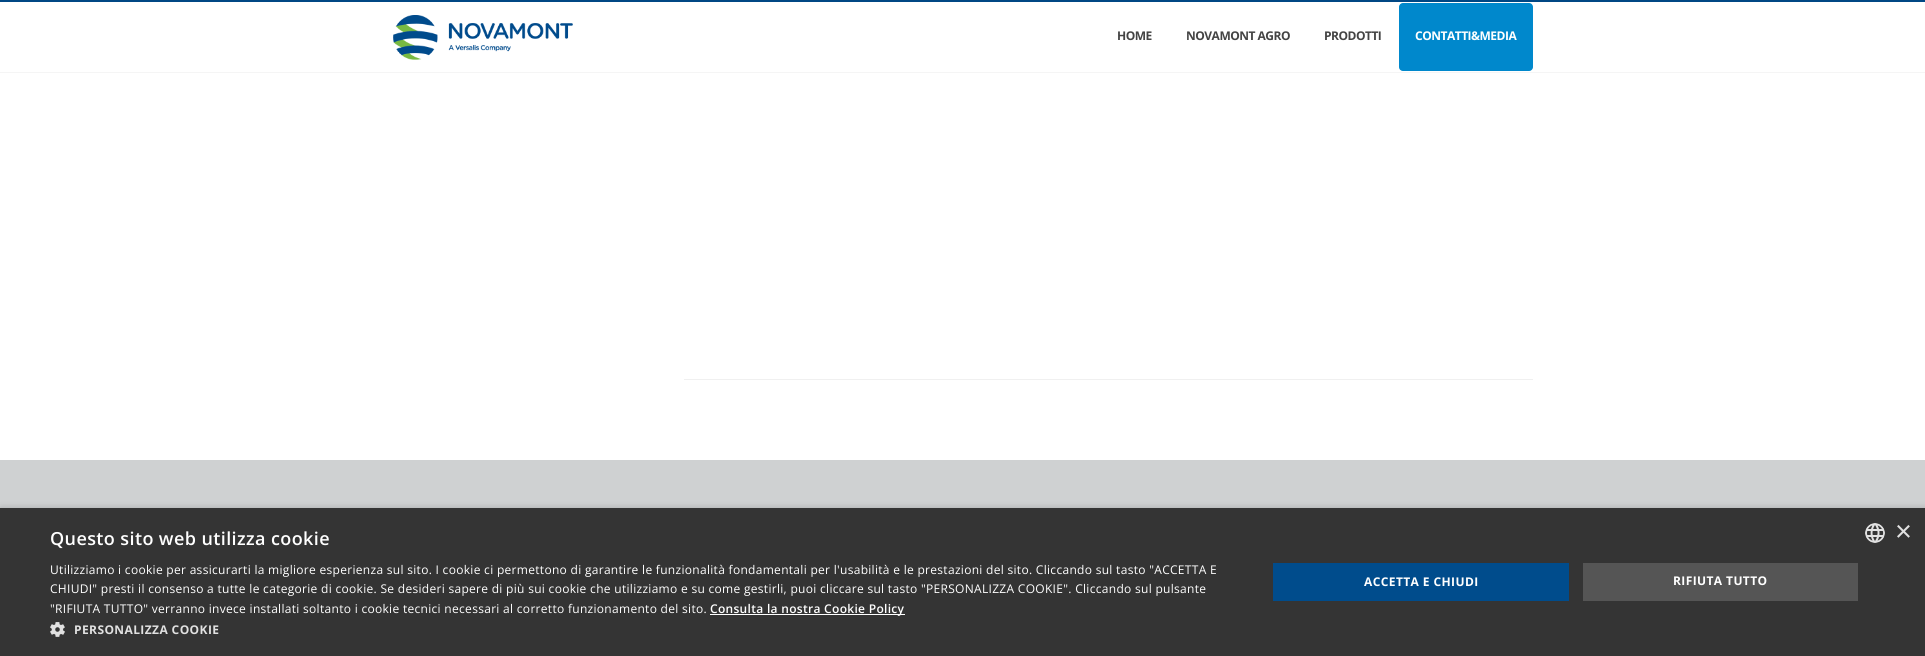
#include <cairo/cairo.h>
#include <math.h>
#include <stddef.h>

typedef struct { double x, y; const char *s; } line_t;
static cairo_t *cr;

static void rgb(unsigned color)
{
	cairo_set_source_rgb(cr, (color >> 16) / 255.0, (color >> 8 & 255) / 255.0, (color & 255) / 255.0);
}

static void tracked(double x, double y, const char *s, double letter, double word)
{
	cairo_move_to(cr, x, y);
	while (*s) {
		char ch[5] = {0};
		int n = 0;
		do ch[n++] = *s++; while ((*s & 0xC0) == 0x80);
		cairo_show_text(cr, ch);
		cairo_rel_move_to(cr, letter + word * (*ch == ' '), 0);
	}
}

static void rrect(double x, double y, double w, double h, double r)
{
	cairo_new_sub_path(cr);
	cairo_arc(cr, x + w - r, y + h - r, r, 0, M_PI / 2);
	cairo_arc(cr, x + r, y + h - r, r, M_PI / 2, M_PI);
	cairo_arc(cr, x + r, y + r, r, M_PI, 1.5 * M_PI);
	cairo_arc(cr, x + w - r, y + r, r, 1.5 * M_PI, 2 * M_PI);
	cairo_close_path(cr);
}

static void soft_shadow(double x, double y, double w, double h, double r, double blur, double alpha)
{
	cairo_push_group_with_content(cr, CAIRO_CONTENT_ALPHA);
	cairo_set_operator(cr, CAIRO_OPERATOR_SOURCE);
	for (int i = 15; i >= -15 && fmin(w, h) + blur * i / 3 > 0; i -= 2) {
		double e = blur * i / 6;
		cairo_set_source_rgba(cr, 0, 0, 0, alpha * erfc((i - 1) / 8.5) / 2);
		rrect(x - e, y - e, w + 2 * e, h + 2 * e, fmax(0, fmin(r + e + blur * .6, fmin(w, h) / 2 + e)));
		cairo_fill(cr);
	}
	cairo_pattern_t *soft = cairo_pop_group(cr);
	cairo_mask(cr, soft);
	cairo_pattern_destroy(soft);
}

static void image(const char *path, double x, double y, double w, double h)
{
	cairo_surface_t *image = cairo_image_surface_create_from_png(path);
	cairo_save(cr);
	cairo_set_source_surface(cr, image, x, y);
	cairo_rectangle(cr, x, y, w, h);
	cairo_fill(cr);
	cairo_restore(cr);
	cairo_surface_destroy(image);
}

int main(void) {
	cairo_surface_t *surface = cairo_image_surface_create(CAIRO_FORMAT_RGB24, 1925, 656);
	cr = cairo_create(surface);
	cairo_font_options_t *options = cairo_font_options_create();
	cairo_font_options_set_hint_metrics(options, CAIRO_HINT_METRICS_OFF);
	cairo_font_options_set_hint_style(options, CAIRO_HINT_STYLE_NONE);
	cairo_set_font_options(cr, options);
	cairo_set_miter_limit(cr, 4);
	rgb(0xffffff);
	cairo_paint(cr);
	rgb(0xf5f5f5);
	cairo_rectangle(cr, 0, 72, 1925, 1);
	cairo_fill(cr);
	rgb(0x004784);
	cairo_rectangle(cr, 0, 0, 1925, 2);
	cairo_fill(cr);
	image("img/1.png", 393, 15, 180, 45);
	rgb(0x0088cc);
	rrect(1399, 3, 134, 68, 4);
	cairo_fill(cr);
	rgb(0xf0f0f0);
	cairo_rectangle(cr, 684, 379, 849, 1);
	cairo_fill(cr);
	rgb(0xcfd1d2);
	cairo_rectangle(cr, 0, 460, 1925, 48);
	cairo_fill(cr);
	rgb(0x000000);
	soft_shadow(1, 510, 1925, 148, 0, 4, 0.35);
	rgb(0x343434);
	cairo_rectangle(cr, 0, 508, 1925, 148);
	cairo_fill(cr);
	rgb(0xffffff);
	cairo_rectangle(cr, 710, 614, 195, 1);
	cairo_fill(cr);
	image("img/2.png", 50, 622, 15, 15);
	rgb(0x004c8c);
	cairo_rectangle(cr, 1273, 563, 296, 38);
	cairo_fill(cr);
	rgb(0x555555);
	cairo_rectangle(cr, 1583, 563, 275, 38);
	cairo_fill(cr);
	image("img/3.png", 1865, 523, 20, 20);
	cairo_select_font_face(cr, "Open Sans", CAIRO_FONT_SLANT_NORMAL, CAIRO_FONT_WEIGHT_BOLD);
	cairo_set_font_size(cr, 12);
	rgb(0x444444);
	{
		static const line_t items[] = {
			{1117, 40, "HOME"},
			{1186, 40, "NOVAMONT AGRO"},
			{1324, 40, "PRODOTTI"},
		};
		for (size_t i = 0; i < sizeof items / sizeof *items; i++) {
			tracked(items[i].x, items[i].y, items[i].s, -0.5, 0);
		}
	}
	rgb(0xffffff);
	tracked(1415, 40, "CONTATTI&MEDIA", -0.5, 0);
	cairo_select_font_face(cr, "Open Sans SemiBold", CAIRO_FONT_SLANT_NORMAL, CAIRO_FONT_WEIGHT_NORMAL);
	cairo_set_font_size(cr, 18);
	tracked(50, 545, "Questo sito web utilizza cookie", 0.4, 0);
	cairo_select_font_face(cr, "Open Sans", CAIRO_FONT_SLANT_NORMAL, CAIRO_FONT_WEIGHT_NORMAL);
	cairo_set_font_size(cr, 12);
	{
		static const line_t items[] = {
			{50, 574, "Utilizziamo i cookie per assicurarti la migliore esperienza sul sito. I cookie ci permettono di garantire le funzionalità fondamentali per l'usabilità e le prestazioni del sito. Cliccando sul tasto \"ACCETTA E"},
			{50, 593, "CHIUDI\" presti il consenso a tutte le categorie di cookie. Se desideri sapere di più sui cookie che utilizziamo e su come gestirli, puoi cliccare sul tasto \"PERSONALIZZA COOKIE\". Cliccando sul pulsante"},
			{50, 613, "\"RIFIUTA TUTTO\" verranno invece installati soltanto i cookie tecnici necessari al corretto funzionamento del sito."},
		};
		for (size_t i = 0; i < sizeof items / sizeof *items; i++) {
			tracked(items[i].x, items[i].y, items[i].s, 0.3, 0);
		}
	}
	cairo_select_font_face(cr, "Open Sans SemiBold", CAIRO_FONT_SLANT_NORMAL, CAIRO_FONT_WEIGHT_NORMAL);
	tracked(710, 613, "Consulta la nostra Cookie Policy", 0.3, 0);
	cairo_select_font_face(cr, "Open Sans", CAIRO_FONT_SLANT_NORMAL, CAIRO_FONT_WEIGHT_BOLD);
	rgb(0xe1e1e1);
	tracked(74, 634, "PERSONALIZZA COOKIE", 0.4, 0);
	rgb(0xffffff);
	tracked(1364, 586, "ACCETTA E CHIUDI", 0.4, 0);
	tracked(1673, 585, "RIFIUTA TUTTO", 0.4, 0);
	cairo_select_font_face(cr, "Liberation Sans", CAIRO_FONT_SLANT_NORMAL, CAIRO_FONT_WEIGHT_NORMAL);
	cairo_set_font_size(cr, 29);
	rgb(0xe1e1e1);
	cairo_move_to(cr, 1895, 541);
	cairo_show_text(cr, "×");
	cairo_surface_write_to_png(surface, "page.png");
	cairo_font_options_destroy(options);
	cairo_destroy(cr);
	cairo_surface_destroy(surface);
	return 0;
}
